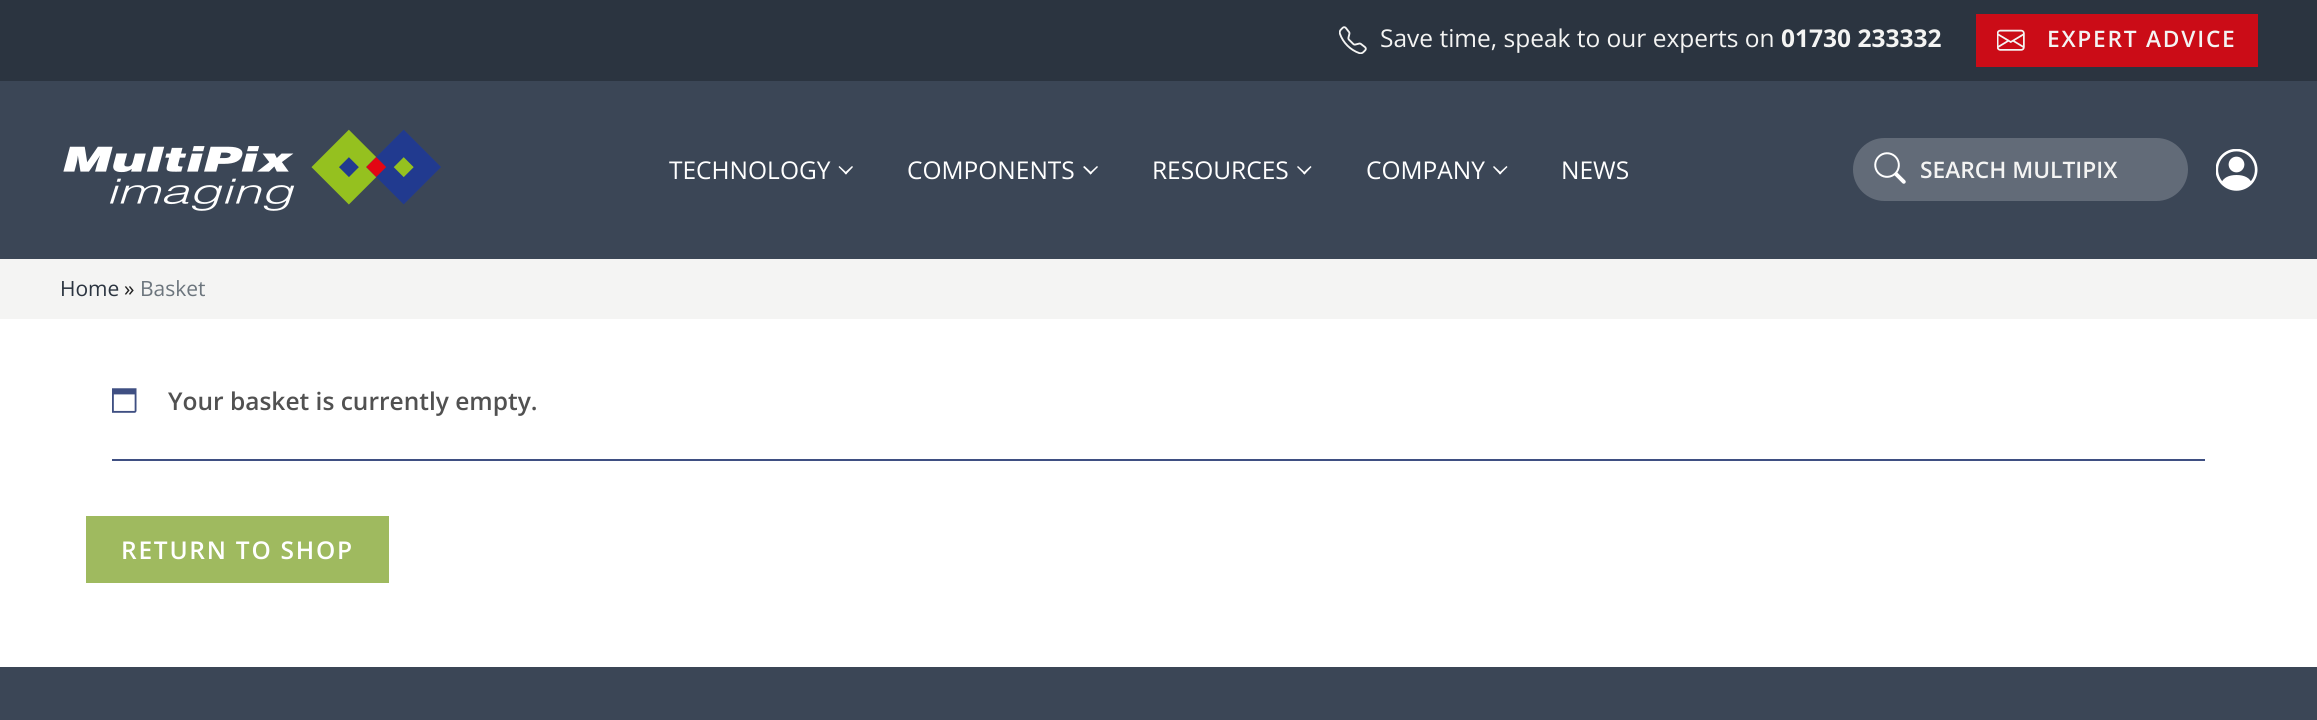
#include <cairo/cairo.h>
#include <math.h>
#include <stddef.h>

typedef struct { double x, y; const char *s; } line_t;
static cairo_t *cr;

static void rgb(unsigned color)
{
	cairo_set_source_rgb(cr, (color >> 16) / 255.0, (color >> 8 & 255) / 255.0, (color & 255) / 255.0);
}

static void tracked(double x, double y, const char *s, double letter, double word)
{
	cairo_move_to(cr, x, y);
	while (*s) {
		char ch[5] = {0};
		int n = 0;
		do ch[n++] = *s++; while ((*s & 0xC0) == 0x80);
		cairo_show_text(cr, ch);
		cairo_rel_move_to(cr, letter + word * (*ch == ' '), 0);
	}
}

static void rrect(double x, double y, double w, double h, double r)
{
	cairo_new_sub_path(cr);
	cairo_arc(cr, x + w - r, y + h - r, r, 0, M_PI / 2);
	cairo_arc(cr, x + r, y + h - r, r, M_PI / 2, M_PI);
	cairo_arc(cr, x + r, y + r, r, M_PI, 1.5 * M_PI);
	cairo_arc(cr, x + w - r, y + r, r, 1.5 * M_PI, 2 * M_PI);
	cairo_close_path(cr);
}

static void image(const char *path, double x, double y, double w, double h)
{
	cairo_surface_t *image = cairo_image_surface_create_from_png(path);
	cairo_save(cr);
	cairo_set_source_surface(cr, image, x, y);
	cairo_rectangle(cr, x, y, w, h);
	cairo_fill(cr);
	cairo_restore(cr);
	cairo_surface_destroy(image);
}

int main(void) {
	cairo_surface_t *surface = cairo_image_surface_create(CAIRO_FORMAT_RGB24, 2317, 720);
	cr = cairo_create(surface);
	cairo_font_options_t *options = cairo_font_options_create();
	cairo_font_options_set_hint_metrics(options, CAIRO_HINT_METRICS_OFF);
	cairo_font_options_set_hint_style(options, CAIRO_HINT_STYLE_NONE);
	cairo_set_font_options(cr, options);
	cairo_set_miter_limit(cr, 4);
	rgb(0xffffff);
	cairo_paint(cr);
	rgb(0x2b3440);
	cairo_rectangle(cr, 0, 0, 2317, 81);
	cairo_fill(cr);
	image("img/1.png", 1339, 26, 28, 28);
	rgb(0xcb0c17);
	cairo_rectangle(cr, 1976, 14, 282, 53);
	cairo_fill(cr);
	image("img/2.png", 1997, 29, 28, 22);
	rgb(0x3b4656);
	cairo_rectangle(cr, 0, 81, 2317, 178);
	cairo_fill(cr);
	image("img/3.png", 63, 129, 378, 82);
	rgb(0xffffff);
	cairo_new_path(cr);
	cairo_move_to(cr, 852, 166);
	cairo_line_to(cr, 853, 167);
	cairo_line_to(cr, 846, 174.5);
	cairo_line_to(cr, 844.5, 173);
	cairo_close_path(cr);
	cairo_fill(cr);
	cairo_new_path(cr);
	cairo_move_to(cr, 839.5, 166);
	cairo_line_to(cr, 847, 173);
	cairo_line_to(cr, 846, 174.5);
	cairo_line_to(cr, 838.5, 167);
	cairo_close_path(cr);
	cairo_fill(cr);
	cairo_new_path(cr);
	cairo_move_to(cr, 1097, 166);
	cairo_line_to(cr, 1098, 167);
	cairo_line_to(cr, 1090.5, 174.5);
	cairo_line_to(cr, 1089.5, 173);
	cairo_close_path(cr);
	cairo_fill(cr);
	cairo_new_path(cr);
	cairo_move_to(cr, 1084.5, 166);
	cairo_line_to(cr, 1092, 173);
	cairo_line_to(cr, 1090.5, 174.5);
	cairo_line_to(cr, 1083, 167);
	cairo_close_path(cr);
	cairo_fill(cr);
	cairo_new_path(cr);
	cairo_move_to(cr, 1310.5, 166);
	cairo_line_to(cr, 1311.5, 167);
	cairo_line_to(cr, 1304.5, 174.5);
	cairo_line_to(cr, 1303, 173);
	cairo_close_path(cr);
	cairo_fill(cr);
	cairo_new_path(cr);
	cairo_move_to(cr, 1298, 166);
	cairo_line_to(cr, 1305.5, 173);
	cairo_line_to(cr, 1304.5, 174.5);
	cairo_line_to(cr, 1297, 167);
	cairo_close_path(cr);
	cairo_fill(cr);
	cairo_new_path(cr);
	cairo_move_to(cr, 1506.5, 166);
	cairo_line_to(cr, 1507.5, 167);
	cairo_line_to(cr, 1500, 174.5);
	cairo_line_to(cr, 1499, 173);
	cairo_close_path(cr);
	cairo_fill(cr);
	cairo_new_path(cr);
	cairo_move_to(cr, 1494, 166);
	cairo_line_to(cr, 1501.5, 173);
	cairo_line_to(cr, 1500, 174.5);
	cairo_line_to(cr, 1493, 167);
	cairo_close_path(cr);
	cairo_fill(cr);
	rgb(0x626b78);
	rrect(1853, 138, 335, 63, 31.5);
	cairo_fill(cr);
	image("img/4.png", 1874, 152, 32, 32);
	image("img/5.png", 2216, 149, 42, 42);
	rgb(0xf4f4f3);
	cairo_rectangle(cr, 0, 259, 2317, 60);
	cairo_fill(cr);
	rgb(0x3f4f82);
	cairo_rectangle(cr, 112, 459, 2093, 2);
	cairo_fill(cr);
	image("img/6.png", 112, 388, 25, 25);
	rgb(0x9fba5f);
	cairo_rectangle(cr, 86, 516, 303, 67);
	cairo_fill(cr);
	rgb(0x3b4656);
	cairo_rectangle(cr, 0, 667, 2317, 53);
	cairo_fill(cr);
	cairo_select_font_face(cr, "Open Sans", CAIRO_FONT_SLANT_NORMAL, CAIRO_FONT_WEIGHT_NORMAL);
	cairo_set_font_size(cr, 24.5);
	rgb(0xf4f4f3);
	cairo_move_to(cr, 1380, 47);
	cairo_show_text(cr, "Save time, speak to our experts on");
	cairo_select_font_face(cr, "Open Sans", CAIRO_FONT_SLANT_NORMAL, CAIRO_FONT_WEIGHT_BOLD);
	cairo_move_to(cr, 1781, 47);
	cairo_show_text(cr, "01730 233332");
	cairo_select_font_face(cr, "Open Sans SemiBold", CAIRO_FONT_SLANT_NORMAL, CAIRO_FONT_WEIGHT_NORMAL);
	cairo_set_font_size(cr, 22.75);
	tracked(2047, 47, "EXPERT ADVICE", 1.75, 0);
	cairo_select_font_face(cr, "Open Sans", CAIRO_FONT_SLANT_NORMAL, CAIRO_FONT_WEIGHT_NORMAL);
	cairo_set_font_size(cr, 24.5);
	rgb(0xffffff);
	{
		static const line_t items[] = {
			{669, 179, "TECHNOLOGY"},
			{907, 179, "COMPONENTS"},
			{1152, 179, "RESOURCES"},
			{1366, 179, "COMPANY"},
			{1561, 179, "NEWS"},
		};
		for (size_t i = 0; i < sizeof items / sizeof *items; i++) {
			cairo_move_to(cr, items[i].x, items[i].y);
			cairo_show_text(cr, items[i].s);
		}
	}
	cairo_select_font_face(cr, "Open Sans SemiBold", CAIRO_FONT_SLANT_NORMAL, CAIRO_FONT_WEIGHT_NORMAL);
	cairo_set_font_size(cr, 22.75);
	rgb(0xf4f4f3);
	cairo_move_to(cr, 1920, 178);
	cairo_show_text(cr, "SEARCH MULTIPIX");
	cairo_select_font_face(cr, "Open Sans", CAIRO_FONT_SLANT_NORMAL, CAIRO_FONT_WEIGHT_NORMAL);
	cairo_set_font_size(cr, 21);
	rgb(0x2b3440);
	cairo_move_to(cr, 60, 296);
	cairo_show_text(cr, "Home");
	rgb(0x222222);
	cairo_move_to(cr, 124, 296);
	cairo_show_text(cr, "»");
	rgb(0x6c757d);
	cairo_move_to(cr, 140, 296);
	cairo_show_text(cr, "Basket");
	cairo_select_font_face(cr, "Open Sans SemiBold", CAIRO_FONT_SLANT_NORMAL, CAIRO_FONT_WEIGHT_NORMAL);
	cairo_set_font_size(cr, 24.5);
	rgb(0x515151);
	cairo_move_to(cr, 168, 410);
	cairo_show_text(cr, "Your basket is currently empty.");
	rgb(0xffffff);
	tracked(121, 559, "RETURN TO SHOP", 1.75, 0);
	cairo_surface_write_to_png(surface, "page.png");
	cairo_font_options_destroy(options);
	cairo_destroy(cr);
	cairo_surface_destroy(surface);
	return 0;
}
